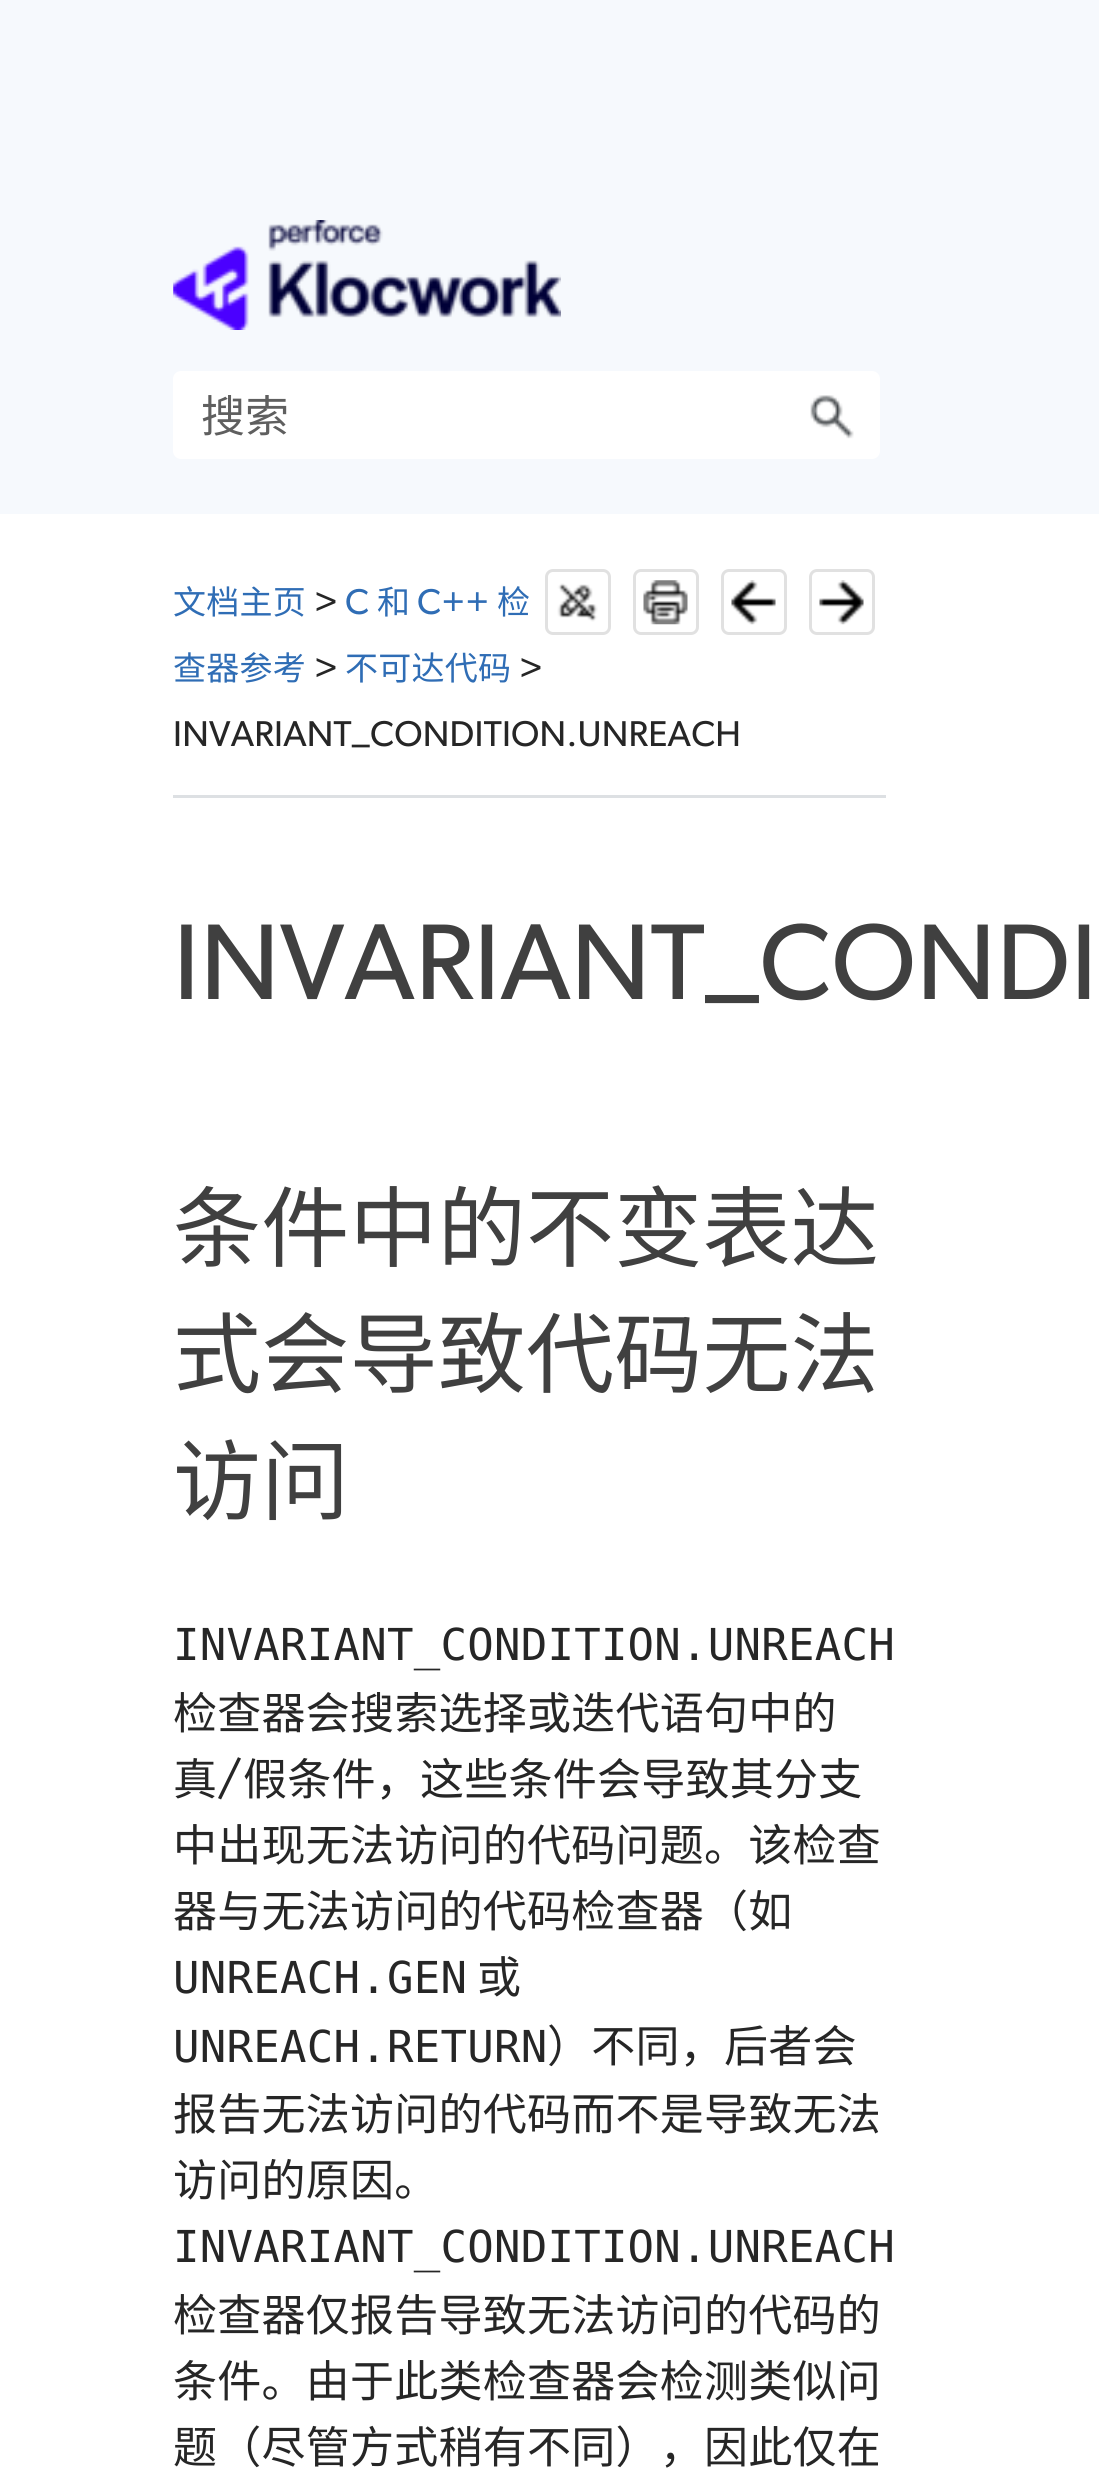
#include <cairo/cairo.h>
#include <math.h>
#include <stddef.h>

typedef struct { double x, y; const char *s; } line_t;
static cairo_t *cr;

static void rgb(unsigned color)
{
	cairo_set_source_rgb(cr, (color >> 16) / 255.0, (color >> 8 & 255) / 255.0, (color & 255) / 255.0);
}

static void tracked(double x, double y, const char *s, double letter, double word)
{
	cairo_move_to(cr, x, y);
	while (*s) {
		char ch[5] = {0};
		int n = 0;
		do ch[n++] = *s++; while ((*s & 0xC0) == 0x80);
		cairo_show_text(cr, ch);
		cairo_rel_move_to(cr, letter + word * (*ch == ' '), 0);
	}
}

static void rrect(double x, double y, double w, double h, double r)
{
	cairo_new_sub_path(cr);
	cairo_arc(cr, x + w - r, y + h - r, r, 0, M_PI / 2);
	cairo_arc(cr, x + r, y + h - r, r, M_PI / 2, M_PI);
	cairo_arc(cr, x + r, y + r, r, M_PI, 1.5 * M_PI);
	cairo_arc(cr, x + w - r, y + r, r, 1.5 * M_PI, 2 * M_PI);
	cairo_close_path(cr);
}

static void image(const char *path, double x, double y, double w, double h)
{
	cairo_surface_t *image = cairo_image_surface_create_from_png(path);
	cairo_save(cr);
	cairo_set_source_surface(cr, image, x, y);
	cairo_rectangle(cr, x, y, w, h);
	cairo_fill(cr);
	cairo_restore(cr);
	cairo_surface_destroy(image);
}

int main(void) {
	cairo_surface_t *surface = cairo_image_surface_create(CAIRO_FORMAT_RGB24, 1099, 2481);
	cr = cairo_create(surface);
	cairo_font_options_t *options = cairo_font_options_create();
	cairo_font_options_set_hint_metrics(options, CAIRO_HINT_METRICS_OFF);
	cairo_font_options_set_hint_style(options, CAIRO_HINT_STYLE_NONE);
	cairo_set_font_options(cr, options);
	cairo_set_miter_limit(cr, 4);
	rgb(0xffffff);
	cairo_paint(cr);
	rgb(0xf6f9fd);
	cairo_rectangle(cr, 0, 0, 1099, 514);
	cairo_fill(cr);
	image("img/1.png", 173, 220, 388, 110);
	rgb(0xffffff);
	rrect(173, 371, 707, 88, 8);
	cairo_fill(cr);
	image("img/2.png", 810, 395, 44, 44);
	image("img/3.png", 557, 583, 41, 39);
	rrect(546.5, 570.5, 63, 63, 6.5);
	rgb(0xe1e1e1);
	cairo_set_line_width(cr, 3);
	cairo_stroke(cr);
	image("img/4.png", 643, 580, 45, 45);
	rrect(634.5, 570.5, 63, 63, 6.5);
	cairo_stroke(cr);
	image("img/5.png", 731, 580, 45, 45);
	rrect(722.5, 570.5, 63, 63, 6.5);
	cairo_stroke(cr);
	image("img/6.png", 819, 580, 45, 45);
	rrect(810.5, 570.5, 63, 63, 6.5);
	cairo_stroke(cr);
	rgb(0xdde0e3);
	cairo_rectangle(cr, 173, 795, 713, 3);
	cairo_fill(cr);
	cairo_select_font_face(cr, "Noto Sans CJK SC", CAIRO_FONT_SLANT_NORMAL, CAIRO_FONT_WEIGHT_NORMAL);
	cairo_set_font_size(cr, 44);
	rgb(0x5f5f5f);
	cairo_move_to(cr, 201, 432);
	cairo_show_text(cr, "搜索");
	cairo_set_font_size(cr, 33);
	rgb(0x2f6db5);
	tracked(173, 614, "文档主页", 0.25, 0);
	cairo_select_font_face(cr, "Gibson", CAIRO_FONT_SLANT_NORMAL, CAIRO_FONT_WEIGHT_NORMAL);
	rgb(0x262626);
	tracked(314, 614, ">", 0.25, 0);
	rgb(0x2f6db5);
	tracked(345, 614, "C", 0.25, 0);
	cairo_select_font_face(cr, "Noto Sans CJK SC", CAIRO_FONT_SLANT_NORMAL, CAIRO_FONT_WEIGHT_NORMAL);
	tracked(377, 614, "和", 0.25, 0);
	cairo_select_font_face(cr, "Gibson", CAIRO_FONT_SLANT_NORMAL, CAIRO_FONT_WEIGHT_NORMAL);
	tracked(417, 614, "C++", 0.25, 0);
	cairo_select_font_face(cr, "Noto Sans CJK SC", CAIRO_FONT_SLANT_NORMAL, CAIRO_FONT_WEIGHT_NORMAL);
	tracked(497, 614, "检", 0.25, 0);
	tracked(173, 680, "查器参考", 0.25, 0);
	cairo_select_font_face(cr, "Gibson", CAIRO_FONT_SLANT_NORMAL, CAIRO_FONT_WEIGHT_NORMAL);
	rgb(0x262626);
	tracked(314, 680, ">", 0.25, 0);
	cairo_select_font_face(cr, "Noto Sans CJK SC", CAIRO_FONT_SLANT_NORMAL, CAIRO_FONT_WEIGHT_NORMAL);
	rgb(0x2f6db5);
	tracked(345, 680, "不可达代码", 0.25, 0);
	cairo_select_font_face(cr, "Gibson", CAIRO_FONT_SLANT_NORMAL, CAIRO_FONT_WEIGHT_NORMAL);
	rgb(0x262626);
	tracked(519, 680, ">", 0.25, 0);
	tracked(173, 746, "INVARIANT_CONDITION.UNREACH", 0.25, 0);
	cairo_set_font_size(cr, 99);
	rgb(0x404040);
	tracked(173, 999, "INVARIANT_CONDI", 0.25, 0);
	cairo_select_font_face(cr, "Noto Sans CJK SC", CAIRO_FONT_SLANT_NORMAL, CAIRO_FONT_WEIGHT_NORMAL);
	cairo_set_font_size(cr, 88);
	{
		static const line_t items[] = {
			{173, 1260, "条件中的不变表达"},
			{173, 1386, "式会导致代码无法"},
			{173, 1513, "访问"},
		};
		for (size_t i = 0; i < sizeof items / sizeof *items; i++) {
			tracked(items[i].x, items[i].y, items[i].s, 0.25, 0);
		}
	}
	cairo_select_font_face(cr, "DejaVu Sans Mono", CAIRO_FONT_SLANT_NORMAL, CAIRO_FONT_WEIGHT_NORMAL);
	cairo_set_font_size(cr, 44);
	rgb(0x262626);
	tracked(173, 1660, "INVARIANT_CONDITION.UNREACH", 0.25, 0);
	cairo_select_font_face(cr, "Noto Sans CJK SC", CAIRO_FONT_SLANT_NORMAL, CAIRO_FONT_WEIGHT_NORMAL);
	tracked(173, 1729, "检查器会搜索选择或迭代语句中的", 0.25, 0);
	tracked(173, 1795, "真", 0.25, 0);
	cairo_select_font_face(cr, "Gibson", CAIRO_FONT_SLANT_NORMAL, CAIRO_FONT_WEIGHT_NORMAL);
	tracked(217, 1795, "/", 0.25, 0);
	cairo_select_font_face(cr, "Noto Sans CJK SC", CAIRO_FONT_SLANT_NORMAL, CAIRO_FONT_WEIGHT_NORMAL);
	{
		static const line_t items[] = {
			{243, 1795, "假条件，这些条件会导致其分支"},
			{173, 1861, "中出现无法访问的代码问题。该检查"},
			{173, 1927, "器与无法访问的代码检查器（如"},
		};
		for (size_t i = 0; i < sizeof items / sizeof *items; i++) {
			tracked(items[i].x, items[i].y, items[i].s, 0.25, 0);
		}
	}
	cairo_select_font_face(cr, "DejaVu Sans Mono", CAIRO_FONT_SLANT_NORMAL, CAIRO_FONT_WEIGHT_NORMAL);
	tracked(173, 1993, "UNREACH.GEN", 0.25, 0);
	cairo_select_font_face(cr, "Noto Sans CJK SC", CAIRO_FONT_SLANT_NORMAL, CAIRO_FONT_WEIGHT_NORMAL);
	tracked(477, 1993, "或", 0.25, 0);
	cairo_select_font_face(cr, "DejaVu Sans Mono", CAIRO_FONT_SLANT_NORMAL, CAIRO_FONT_WEIGHT_NORMAL);
	tracked(173, 2062, "UNREACH.RETURN", 0.25, 0);
	cairo_select_font_face(cr, "Noto Sans CJK SC", CAIRO_FONT_SLANT_NORMAL, CAIRO_FONT_WEIGHT_NORMAL);
	{
		static const line_t items[] = {
			{547, 2062, "）不同，后者会"},
			{173, 2130, "报告无法访问的代码而不是导致无法"},
			{173, 2196, "访问的原因。"},
		};
		for (size_t i = 0; i < sizeof items / sizeof *items; i++) {
			tracked(items[i].x, items[i].y, items[i].s, 0.25, 0);
		}
	}
	cairo_select_font_face(cr, "DejaVu Sans Mono", CAIRO_FONT_SLANT_NORMAL, CAIRO_FONT_WEIGHT_NORMAL);
	tracked(173, 2262, "INVARIANT_CONDITION.UNREACH", 0.25, 0);
	cairo_select_font_face(cr, "Noto Sans CJK SC", CAIRO_FONT_SLANT_NORMAL, CAIRO_FONT_WEIGHT_NORMAL);
	{
		static const line_t items[] = {
			{173, 2331, "检查器仅报告导致无法访问的代码的"},
			{173, 2397, "条件。由于此类检查器会检测类似问"},
			{173, 2463, "题（尽管方式稍有不同），因此仅在"},
		};
		for (size_t i = 0; i < sizeof items / sizeof *items; i++) {
			tracked(items[i].x, items[i].y, items[i].s, 0.25, 0);
		}
	}
	cairo_surface_write_to_png(surface, "page.png");
	cairo_font_options_destroy(options);
	cairo_destroy(cr);
	cairo_surface_destroy(surface);
	return 0;
}
